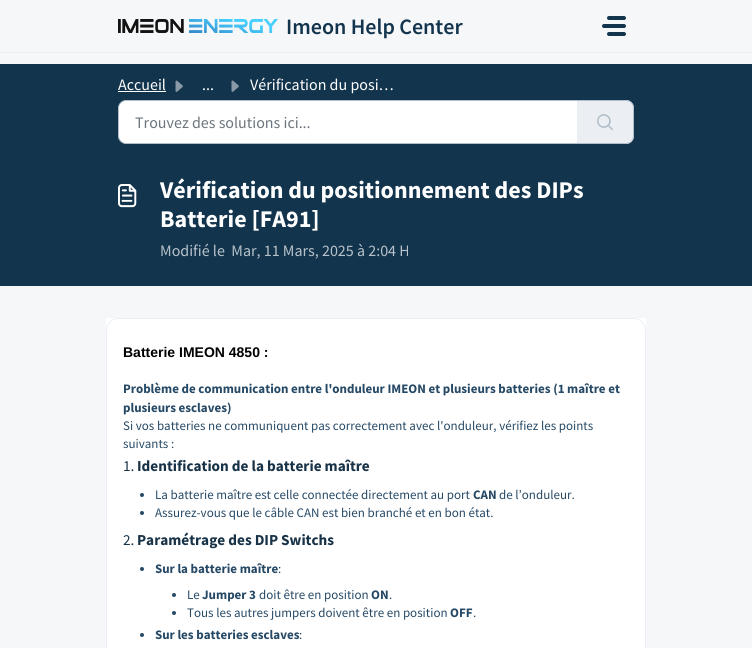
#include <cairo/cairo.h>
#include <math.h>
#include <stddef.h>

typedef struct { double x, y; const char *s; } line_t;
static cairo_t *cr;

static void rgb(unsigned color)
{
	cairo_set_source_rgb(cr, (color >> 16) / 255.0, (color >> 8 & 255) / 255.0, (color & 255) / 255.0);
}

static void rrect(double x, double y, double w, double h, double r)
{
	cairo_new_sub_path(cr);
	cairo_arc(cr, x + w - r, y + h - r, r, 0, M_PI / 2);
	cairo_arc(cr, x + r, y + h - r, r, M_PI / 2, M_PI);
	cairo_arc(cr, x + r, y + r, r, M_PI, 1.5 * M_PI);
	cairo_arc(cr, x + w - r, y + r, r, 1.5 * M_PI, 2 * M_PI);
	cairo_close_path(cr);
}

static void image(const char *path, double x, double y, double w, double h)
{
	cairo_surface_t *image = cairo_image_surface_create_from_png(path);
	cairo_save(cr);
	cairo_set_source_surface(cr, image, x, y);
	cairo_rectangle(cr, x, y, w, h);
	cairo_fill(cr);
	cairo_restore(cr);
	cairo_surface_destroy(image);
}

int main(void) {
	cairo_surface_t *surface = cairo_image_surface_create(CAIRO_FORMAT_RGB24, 752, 648);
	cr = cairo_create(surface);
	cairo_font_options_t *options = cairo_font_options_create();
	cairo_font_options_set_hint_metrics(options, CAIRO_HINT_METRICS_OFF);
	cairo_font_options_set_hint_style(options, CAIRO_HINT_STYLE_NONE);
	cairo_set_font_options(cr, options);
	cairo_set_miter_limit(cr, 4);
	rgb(0xf5f7f9);
	cairo_paint(cr);
	rgb(0xebeff3);
	cairo_rectangle(cr, 0, 52, 752, 1);
	cairo_fill(cr);
	image("img/1.png", 118, 19, 160, 14);
	rgb(0x12344d);
	rrect(607, 16, 19, 4, 2);
	cairo_fill(cr);
	rrect(602, 24, 24, 4, 2);
	cairo_fill(cr);
	rrect(607, 32, 19, 4, 2);
	cairo_fill(cr);
	cairo_rectangle(cr, 0, 64, 752, 222);
	cairo_fill(cr);
	rgb(0xffffff);
	cairo_rectangle(cr, 118, 91, 48, 1);
	cairo_fill(cr);
	image("img/2.png", 175, 80, 8, 12);
	image("img/3.png", 231, 80, 8, 12);
	cairo_new_path(cr);
	cairo_move_to(cr, 126, 100.5);
	cairo_line_to(cr, 577.5, 100.5);
	cairo_line_to(cr, 577.5, 143.5);
	cairo_line_to(cr, 126, 143.5);
	cairo_curve_to(cr, 122, 143.5, 118.5, 140, 118.5, 136);
	cairo_line_to(cr, 118.5, 108);
	cairo_curve_to(cr, 118.5, 104, 122, 100.5, 126, 100.5);
	cairo_close_path(cr);
	cairo_fill_preserve(cr);
	rgb(0xb1bdc8);
	cairo_set_line_width(cr, 1);
	cairo_stroke(cr);
	rgb(0xebeff3);
	cairo_new_path(cr);
	cairo_move_to(cr, 577, 100);
	cairo_line_to(cr, 626, 100);
	cairo_curve_to(cr, 630.5, 100, 634, 103.5, 634, 108);
	cairo_line_to(cr, 634, 136);
	cairo_curve_to(cr, 634, 140.5, 630.5, 144, 626, 144);
	cairo_line_to(cr, 577, 144);
	cairo_close_path(cr);
	cairo_fill(cr);
	rgb(0xb1bdc8);
	cairo_set_fill_rule(cr, CAIRO_FILL_RULE_EVEN_ODD);
	cairo_new_path(cr);
	cairo_move_to(cr, 577, 100);
	cairo_line_to(cr, 626, 100);
	cairo_curve_to(cr, 630, 100, 634, 104, 634, 108);
	cairo_line_to(cr, 634, 136);
	cairo_curve_to(cr, 634, 140, 630, 144, 626, 144);
	cairo_line_to(cr, 577, 144);
	cairo_close_path(cr);
	cairo_move_to(cr, 577, 101);
	cairo_line_to(cr, 626, 101);
	cairo_curve_to(cr, 630, 101, 633, 104, 633, 108);
	cairo_line_to(cr, 633, 136);
	cairo_curve_to(cr, 633, 140, 630, 143, 626, 143);
	cairo_line_to(cr, 577, 143);
	cairo_close_path(cr);
	cairo_fill(cr);
	image("img/4.png", 597, 114, 16, 17);
	image("img/5.png", 118, 184, 19, 24);
	rgb(0xffffff);
	cairo_rectangle(cr, 106, 318, 540, 330);
	cairo_fill(cr);
	rrect(106.5, 318.5, 539, 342, 11.5);
	rgb(0xebeff3);
	cairo_stroke(cr);
	rgb(0x264966);
	cairo_arc(cr, 142, 495, 2, 0, 2 * M_PI);
	cairo_fill(cr);
	cairo_arc(cr, 142, 513, 2, 0, 2 * M_PI);
	cairo_fill(cr);
	cairo_arc(cr, 142, 569, 2, 0, 2 * M_PI);
	cairo_fill(cr);
	cairo_arc(cr, 174, 595, 2, 0, 2 * M_PI);
	cairo_fill(cr);
	cairo_arc(cr, 174, 613, 2, 0, 2 * M_PI);
	cairo_fill(cr);
	cairo_arc(cr, 142, 635, 2, 0, 2 * M_PI);
	cairo_fill(cr);
	cairo_select_font_face(cr, "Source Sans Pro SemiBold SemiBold", CAIRO_FONT_SLANT_NORMAL, CAIRO_FONT_WEIGHT_NORMAL);
	cairo_set_font_size(cr, 22);
	rgb(0x12344d);
	cairo_move_to(cr, 286, 34);
	cairo_show_text(cr, "Imeon Help Center");
	cairo_select_font_face(cr, "Source Sans Pro", CAIRO_FONT_SLANT_NORMAL, CAIRO_FONT_WEIGHT_NORMAL);
	cairo_set_font_size(cr, 16);
	rgb(0xffffff);
	{
		static const line_t items[] = {
			{118, 90, "Accueil"},
			{202, 90, "..."},
			{250, 90, "Vérification du posi…"},
		};
		for (size_t i = 0; i < sizeof items / sizeof *items; i++) {
			cairo_move_to(cr, items[i].x, items[i].y);
			cairo_show_text(cr, items[i].s);
		}
	}
	rgb(0x6c757d);
	cairo_move_to(cr, 135, 128);
	cairo_show_text(cr, "Trouvez des solutions ici...");
	cairo_select_font_face(cr, "Source Sans Pro", CAIRO_FONT_SLANT_NORMAL, CAIRO_FONT_WEIGHT_BOLD);
	cairo_set_font_size(cr, 24);
	rgb(0xffffff);
	cairo_move_to(cr, 160, 198);
	cairo_show_text(cr, "Vérification du positionnement des DIPs");
	cairo_move_to(cr, 160, 227);
	cairo_show_text(cr, "Batterie [FA91]");
	cairo_select_font_face(cr, "Source Sans Pro", CAIRO_FONT_SLANT_NORMAL, CAIRO_FONT_WEIGHT_NORMAL);
	cairo_set_font_size(cr, 16);
	rgb(0xb8c2ca);
	cairo_move_to(cr, 160, 256);
	cairo_show_text(cr, "Modifié le  Mar, 11 Mars, 2025 à 2:04 H");
	cairo_select_font_face(cr, "Liberation Sans", CAIRO_FONT_SLANT_NORMAL, CAIRO_FONT_WEIGHT_BOLD);
	cairo_set_font_size(cr, 14);
	rgb(0x000000);
	cairo_move_to(cr, 123, 357);
	cairo_show_text(cr, "Batterie IMEON 4850 :");
	cairo_select_font_face(cr, "Source Sans Pro", CAIRO_FONT_SLANT_NORMAL, CAIRO_FONT_WEIGHT_BOLD);
	cairo_set_font_size(cr, 13);
	rgb(0x264966);
	cairo_move_to(cr, 123, 393);
	cairo_show_text(cr, "Problème de communication entre l'onduleur IMEON et plusieurs batteries (1 maître et");
	cairo_move_to(cr, 123, 412);
	cairo_show_text(cr, "plusieurs esclaves)");
	cairo_select_font_face(cr, "Source Sans Pro", CAIRO_FONT_SLANT_NORMAL, CAIRO_FONT_WEIGHT_NORMAL);
	cairo_move_to(cr, 123, 430);
	cairo_show_text(cr, "Si vos batteries ne communiquent pas correctement avec l'onduleur, vérifiez les points");
	cairo_move_to(cr, 123, 448);
	cairo_show_text(cr, "suivants :");
	cairo_set_font_size(cr, 15.25);
	rgb(0x183247);
	cairo_move_to(cr, 123, 471);
	cairo_show_text(cr, "1.");
	cairo_select_font_face(cr, "Source Sans Pro", CAIRO_FONT_SLANT_NORMAL, CAIRO_FONT_WEIGHT_BOLD);
	cairo_move_to(cr, 137, 471);
	cairo_show_text(cr, "Identification de la batterie maître");
	cairo_select_font_face(cr, "Source Sans Pro", CAIRO_FONT_SLANT_NORMAL, CAIRO_FONT_WEIGHT_NORMAL);
	cairo_set_font_size(cr, 13);
	rgb(0x264966);
	cairo_move_to(cr, 155, 499);
	cairo_show_text(cr, "La batterie maître est celle connectée directement au port");
	cairo_select_font_face(cr, "Source Sans Pro", CAIRO_FONT_SLANT_NORMAL, CAIRO_FONT_WEIGHT_BOLD);
	cairo_move_to(cr, 473, 499);
	cairo_show_text(cr, "CAN");
	cairo_select_font_face(cr, "Source Sans Pro", CAIRO_FONT_SLANT_NORMAL, CAIRO_FONT_WEIGHT_NORMAL);
	cairo_move_to(cr, 499, 499);
	cairo_show_text(cr, "de l’onduleur.");
	cairo_move_to(cr, 155, 517);
	cairo_show_text(cr, "Assurez-vous que le câble CAN est bien branché et en bon état.");
	cairo_set_font_size(cr, 15.25);
	rgb(0x183247);
	cairo_move_to(cr, 123, 545);
	cairo_show_text(cr, "2.");
	cairo_select_font_face(cr, "Source Sans Pro", CAIRO_FONT_SLANT_NORMAL, CAIRO_FONT_WEIGHT_BOLD);
	cairo_move_to(cr, 137, 545);
	cairo_show_text(cr, "Paramétrage des DIP Switchs");
	cairo_set_font_size(cr, 13);
	rgb(0x264966);
	cairo_move_to(cr, 155, 573);
	cairo_show_text(cr, "Sur la batterie maître");
	cairo_select_font_face(cr, "Source Sans Pro", CAIRO_FONT_SLANT_NORMAL, CAIRO_FONT_WEIGHT_NORMAL);
	cairo_move_to(cr, 278, 573);
	cairo_show_text(cr, ":");
	cairo_move_to(cr, 187, 599);
	cairo_show_text(cr, "Le");
	cairo_select_font_face(cr, "Source Sans Pro", CAIRO_FONT_SLANT_NORMAL, CAIRO_FONT_WEIGHT_BOLD);
	cairo_move_to(cr, 202, 599);
	cairo_show_text(cr, "Jumper 3");
	cairo_select_font_face(cr, "Source Sans Pro", CAIRO_FONT_SLANT_NORMAL, CAIRO_FONT_WEIGHT_NORMAL);
	cairo_move_to(cr, 259, 599);
	cairo_show_text(cr, "doit être en position");
	cairo_select_font_face(cr, "Source Sans Pro", CAIRO_FONT_SLANT_NORMAL, CAIRO_FONT_WEIGHT_BOLD);
	cairo_move_to(cr, 371, 599);
	cairo_show_text(cr, "ON");
	cairo_select_font_face(cr, "Source Sans Pro", CAIRO_FONT_SLANT_NORMAL, CAIRO_FONT_WEIGHT_NORMAL);
	cairo_move_to(cr, 389, 599);
	cairo_show_text(cr, ".");
	cairo_move_to(cr, 187, 617);
	cairo_show_text(cr, "Tous les autres jumpers doivent être en position");
	cairo_select_font_face(cr, "Source Sans Pro", CAIRO_FONT_SLANT_NORMAL, CAIRO_FONT_WEIGHT_BOLD);
	cairo_move_to(cr, 450, 617);
	cairo_show_text(cr, "OFF");
	cairo_select_font_face(cr, "Source Sans Pro", CAIRO_FONT_SLANT_NORMAL, CAIRO_FONT_WEIGHT_NORMAL);
	cairo_move_to(cr, 473, 617);
	cairo_show_text(cr, ".");
	cairo_select_font_face(cr, "Source Sans Pro", CAIRO_FONT_SLANT_NORMAL, CAIRO_FONT_WEIGHT_BOLD);
	cairo_move_to(cr, 155, 639);
	cairo_show_text(cr, "Sur les batteries esclaves");
	cairo_select_font_face(cr, "Source Sans Pro", CAIRO_FONT_SLANT_NORMAL, CAIRO_FONT_WEIGHT_NORMAL);
	cairo_move_to(cr, 299, 639);
	cairo_show_text(cr, ":");
	cairo_surface_write_to_png(surface, "page.png");
	cairo_font_options_destroy(options);
	cairo_destroy(cr);
	cairo_surface_destroy(surface);
	return 0;
}
